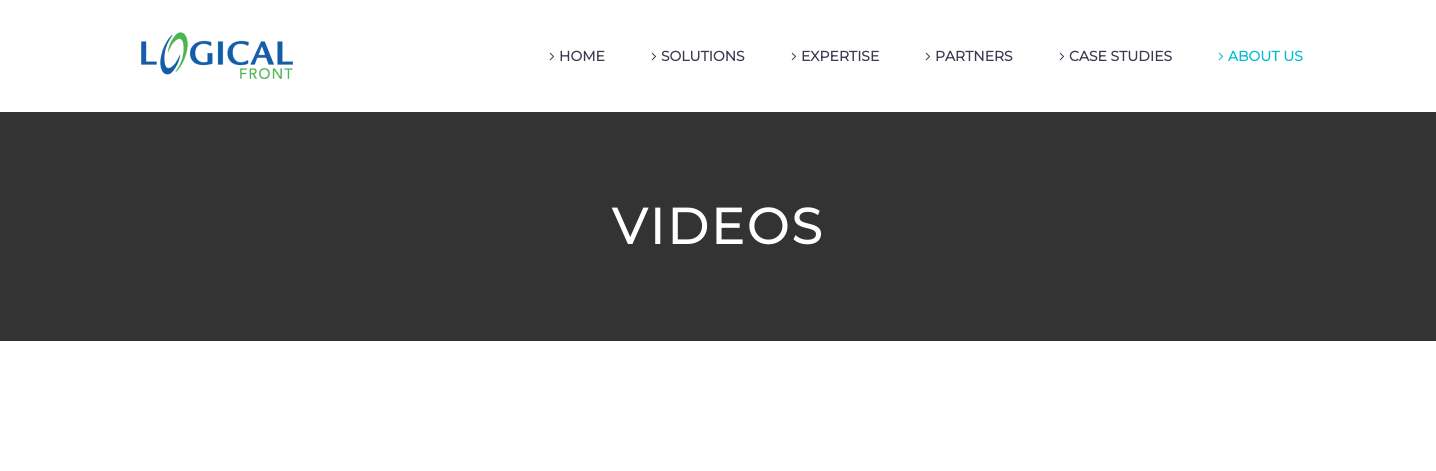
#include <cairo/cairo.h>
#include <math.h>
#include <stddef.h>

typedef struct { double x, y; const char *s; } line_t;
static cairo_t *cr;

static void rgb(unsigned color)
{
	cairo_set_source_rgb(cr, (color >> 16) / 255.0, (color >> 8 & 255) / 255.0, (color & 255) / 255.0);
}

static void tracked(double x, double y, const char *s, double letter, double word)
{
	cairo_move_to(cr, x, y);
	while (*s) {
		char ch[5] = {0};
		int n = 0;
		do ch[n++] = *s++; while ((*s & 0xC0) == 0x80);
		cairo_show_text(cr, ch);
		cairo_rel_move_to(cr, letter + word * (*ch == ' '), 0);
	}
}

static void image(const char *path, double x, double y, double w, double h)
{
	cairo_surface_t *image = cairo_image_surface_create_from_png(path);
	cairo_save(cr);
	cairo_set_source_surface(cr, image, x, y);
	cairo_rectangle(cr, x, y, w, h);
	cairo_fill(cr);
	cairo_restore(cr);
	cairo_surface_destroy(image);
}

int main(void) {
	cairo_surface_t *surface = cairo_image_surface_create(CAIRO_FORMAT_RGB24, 1436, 471);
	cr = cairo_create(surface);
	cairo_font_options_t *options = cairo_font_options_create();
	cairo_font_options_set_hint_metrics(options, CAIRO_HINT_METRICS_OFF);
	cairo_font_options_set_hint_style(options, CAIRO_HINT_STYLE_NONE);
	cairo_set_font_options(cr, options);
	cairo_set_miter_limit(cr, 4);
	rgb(0xffffff);
	cairo_paint(cr);
	image("img/1.png", 141, 32, 152, 47);
	image("img/2.png", 549, 52, 5, 9);
	image("img/2.png", 651, 52, 5, 9);
	image("img/2.png", 791, 52, 5, 9);
	image("img/2.png", 925, 52, 5, 9);
	image("img/2.png", 1059, 52, 5, 9);
	image("img/3.png", 1218, 52, 5, 9);
	rgb(0x333333);
	cairo_rectangle(cr, 0, 112, 1436, 229);
	cairo_fill(cr);
	cairo_select_font_face(cr, "Montserrat", CAIRO_FONT_SLANT_NORMAL, CAIRO_FONT_WEIGHT_BOLD);
	cairo_set_font_size(cr, 14);
	rgb(0x3c3950);
	{
		static const line_t items[] = {
			{559, 61, "HOME"},
			{661, 61, "SOLUTIONS"},
			{801, 61, "EXPERTISE"},
			{935, 61, "PARTNERS"},
			{1069, 61, "CASE STUDIES"},
		};
		for (size_t i = 0; i < sizeof items / sizeof *items; i++) {
			cairo_move_to(cr, items[i].x, items[i].y);
			cairo_show_text(cr, items[i].s);
		}
	}
	rgb(0x00bcd4);
	cairo_move_to(cr, 1228, 61);
	cairo_show_text(cr, "ABOUT US");
	cairo_set_font_size(cr, 50);
	rgb(0xffffff);
	tracked(612, 244, "VIDEOS", 2.5, 0);
	cairo_surface_write_to_png(surface, "page.png");
	cairo_font_options_destroy(options);
	cairo_destroy(cr);
	cairo_surface_destroy(surface);
	return 0;
}
